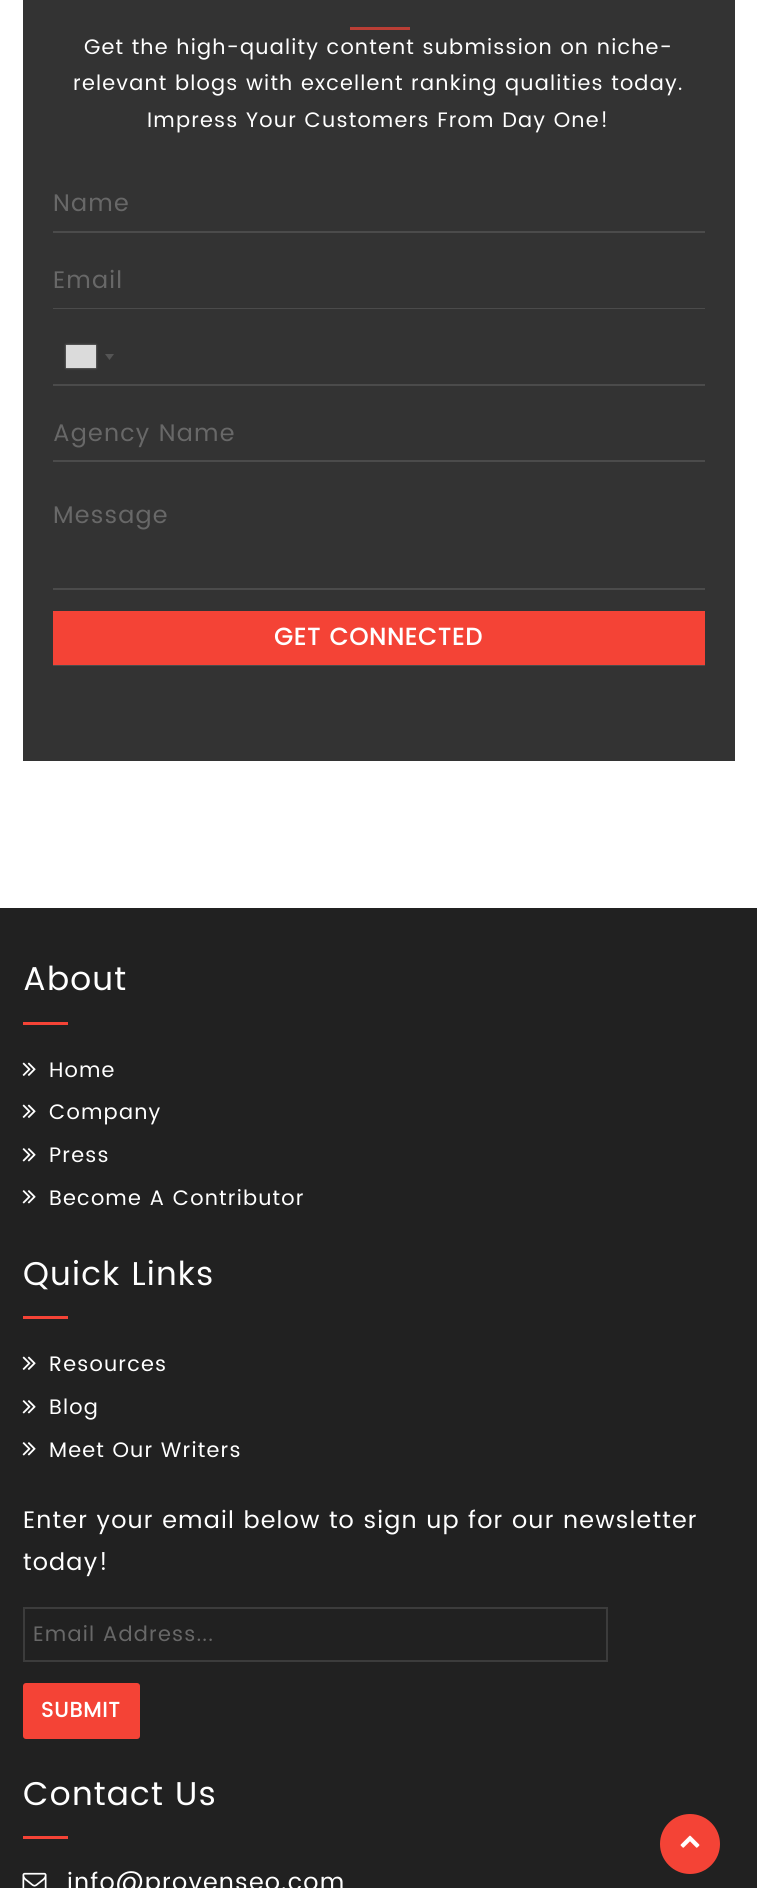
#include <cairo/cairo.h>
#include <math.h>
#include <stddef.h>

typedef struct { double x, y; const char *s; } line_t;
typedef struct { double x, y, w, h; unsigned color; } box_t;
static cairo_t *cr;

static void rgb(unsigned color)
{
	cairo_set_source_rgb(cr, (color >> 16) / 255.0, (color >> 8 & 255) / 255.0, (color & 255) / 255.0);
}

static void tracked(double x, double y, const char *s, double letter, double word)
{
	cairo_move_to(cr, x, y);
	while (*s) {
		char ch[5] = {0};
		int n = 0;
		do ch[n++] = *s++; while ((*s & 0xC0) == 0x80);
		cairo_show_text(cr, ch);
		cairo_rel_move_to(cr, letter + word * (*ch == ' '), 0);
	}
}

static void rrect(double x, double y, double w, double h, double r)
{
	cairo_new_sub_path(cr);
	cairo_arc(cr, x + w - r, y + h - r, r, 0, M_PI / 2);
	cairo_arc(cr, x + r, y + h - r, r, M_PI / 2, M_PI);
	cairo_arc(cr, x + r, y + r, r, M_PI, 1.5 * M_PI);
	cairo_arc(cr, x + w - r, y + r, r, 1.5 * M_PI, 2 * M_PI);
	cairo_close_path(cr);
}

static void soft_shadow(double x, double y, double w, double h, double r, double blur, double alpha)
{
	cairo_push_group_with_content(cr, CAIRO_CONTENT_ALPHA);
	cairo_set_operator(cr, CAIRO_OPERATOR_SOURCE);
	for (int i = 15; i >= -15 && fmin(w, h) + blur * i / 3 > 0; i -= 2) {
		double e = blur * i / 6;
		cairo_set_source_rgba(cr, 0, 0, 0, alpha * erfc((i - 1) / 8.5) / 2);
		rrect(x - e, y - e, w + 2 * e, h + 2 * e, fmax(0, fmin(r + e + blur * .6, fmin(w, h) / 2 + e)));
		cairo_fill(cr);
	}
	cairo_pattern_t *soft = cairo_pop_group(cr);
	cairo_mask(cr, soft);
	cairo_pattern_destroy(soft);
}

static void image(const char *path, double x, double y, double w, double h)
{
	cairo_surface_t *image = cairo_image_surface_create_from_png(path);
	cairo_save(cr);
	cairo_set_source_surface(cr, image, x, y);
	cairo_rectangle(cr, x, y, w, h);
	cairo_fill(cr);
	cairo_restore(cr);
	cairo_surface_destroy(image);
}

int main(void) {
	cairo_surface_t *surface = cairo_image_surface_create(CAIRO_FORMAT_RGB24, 757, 1888);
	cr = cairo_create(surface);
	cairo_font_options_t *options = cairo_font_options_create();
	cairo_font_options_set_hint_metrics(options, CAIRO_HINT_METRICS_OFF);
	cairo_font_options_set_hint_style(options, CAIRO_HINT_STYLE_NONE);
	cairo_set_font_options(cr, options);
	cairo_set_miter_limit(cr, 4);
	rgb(0xffffff);
	cairo_paint(cr);
	{
		static const box_t items[] = {
			{23, 0, 712, 761, 0x333333},
			{350, 27, 60, 3, 0xba3e35},
			{53, 231, 652, 2, 0x4b4b4b},
			{53, 308, 652, 1, 0x4b4b4b},
		};
		for (size_t i = 0; i < sizeof items / sizeof *items; i++) {
			rgb(items[i].color);
			cairo_rectangle(cr, items[i].x, items[i].y, items[i].w, items[i].h);
			cairo_fill(cr);
		}
	}
	rgb(0x888888);
	soft_shadow(66, 345, 30, 23, 0, 1, 1);
	rgb(0xdbdbdb);
	cairo_rectangle(cr, 66, 345, 30, 23);
	cairo_fill(cr);
	rgb(0x555555);
	cairo_new_path(cr);
	cairo_move_to(cr, 105, 354);
	cairo_line_to(cr, 114, 354);
	cairo_line_to(cr, 109.5, 360);
	cairo_close_path(cr);
	cairo_fill(cr);
	{
		static const box_t items[] = {
			{53, 384, 652, 2, 0x4b4b4b},
			{53, 460, 652, 2, 0x4b4b4b},
			{53, 588, 652, 2, 0x4b4b4b},
			{53, 665, 652, 1, 0x4b4b4b},
			{53, 611, 652, 54, 0xf44336},
			{0, 908, 757, 980, 0x212121},
			{23, 1022, 45, 3, 0xf44336},
		};
		for (size_t i = 0; i < sizeof items / sizeof *items; i++) {
			rgb(items[i].color);
			cairo_rectangle(cr, items[i].x, items[i].y, items[i].w, items[i].h);
			cairo_fill(cr);
		}
	}
	image("img/1.png", 22, 1062, 14, 14);
	image("img/1.png", 22, 1104, 14, 14);
	image("img/2.png", 22, 1148, 14, 14);
	image("img/2.png", 22, 1190, 14, 14);
	cairo_rectangle(cr, 23, 1316, 45, 3);
	cairo_fill(cr);
	image("img/1.png", 22, 1356, 14, 14);
	image("img/2.png", 22, 1400, 14, 14);
	image("img/2.png", 22, 1442, 14, 14);
	cairo_rectangle(cr, 24, 1608, 583, 53);
	rgb(0x3c3c3c);
	cairo_stroke(cr);
	rgb(0xf44336);
	rrect(23, 1683, 117, 56, 3);
	cairo_fill(cr);
	cairo_rectangle(cr, 23, 1836, 45, 3);
	cairo_fill(cr);
	image("img/3.png", 22, 1872, 25, 16);
	cairo_arc(cr, 690, 1844, 30, 0, 2 * M_PI);
	cairo_fill(cr);
	image("img/4.png", 680, 1835, 20, 13);
	cairo_select_font_face(cr, "Poppins", CAIRO_FONT_SLANT_NORMAL, CAIRO_FONT_WEIGHT_NORMAL);
	cairo_set_font_size(cr, 21);
	rgb(0xffffff);
	{
		static const line_t items[] = {
			{84, 54, "Get the high-quality content submission on niche-"},
			{73, 90, "relevant blogs with excellent ranking qualities today."},
			{147, 127, "Impress Your Customers From Day One!"},
		};
		for (size_t i = 0; i < sizeof items / sizeof *items; i++) {
			tracked(items[i].x, items[i].y, items[i].s, 1.2, 0);
		}
	}
	cairo_set_font_size(cr, 24);
	rgb(0x686868);
	{
		static const line_t items[] = {
			{53, 211, "Name"},
			{53, 288, "Email"},
			{53, 441, "Agency Name"},
			{53, 523, "Message"},
		};
		for (size_t i = 0; i < sizeof items / sizeof *items; i++) {
			tracked(items[i].x, items[i].y, items[i].s, 1.2, 0);
		}
	}
	cairo_select_font_face(cr, "Poppins", CAIRO_FONT_SLANT_NORMAL, CAIRO_FONT_WEIGHT_BOLD);
	rgb(0xffffff);
	tracked(274, 645, "GET CONNECTED", 1.1, 0);
	cairo_select_font_face(cr, "Poppins", CAIRO_FONT_SLANT_NORMAL, CAIRO_FONT_WEIGHT_NORMAL);
	cairo_set_font_size(cr, 33);
	tracked(23, 990, "About", 1.2, 0);
	cairo_set_font_size(cr, 21);
	{
		static const line_t items[] = {
			{49, 1077, "Home"},
			{49, 1119, "Company"},
			{49, 1162, "Press"},
			{49, 1205, "Become A Contributor"},
		};
		for (size_t i = 0; i < sizeof items / sizeof *items; i++) {
			tracked(items[i].x, items[i].y, items[i].s, 1.2, 0);
		}
	}
	cairo_set_font_size(cr, 33);
	tracked(23, 1285, "Quick Links", 1.2, 0);
	cairo_set_font_size(cr, 21);
	{
		static const line_t items[] = {
			{49, 1371, "Resources"},
			{49, 1414, "Blog"},
			{49, 1457, "Meet Our Writers"},
		};
		for (size_t i = 0; i < sizeof items / sizeof *items; i++) {
			tracked(items[i].x, items[i].y, items[i].s, 1.2, 0);
		}
	}
	cairo_set_font_size(cr, 24);
	tracked(23, 1528, "Enter your email below to sign up for our newsletter", 1.2, 0);
	tracked(23, 1570, "today!", 1.2, 0);
	cairo_set_font_size(cr, 21);
	rgb(0x686868);
	tracked(33, 1641, "Email Address...", 1.2, 0);
	cairo_select_font_face(cr, "Poppins", CAIRO_FONT_SLANT_NORMAL, CAIRO_FONT_WEIGHT_BOLD);
	rgb(0xffffff);
	tracked(41, 1717, "SUBMIT", 1, 0);
	cairo_select_font_face(cr, "Poppins", CAIRO_FONT_SLANT_NORMAL, CAIRO_FONT_WEIGHT_NORMAL);
	cairo_set_font_size(cr, 33);
	tracked(23, 1805, "Contact Us", 1.2, 0);
	cairo_set_font_size(cr, 24);
	tracked(67, 1890, "info@provenseo.com", 1.2, 0);
	cairo_surface_write_to_png(surface, "page.png");
	cairo_font_options_destroy(options);
	cairo_destroy(cr);
	cairo_surface_destroy(surface);
	return 0;
}
